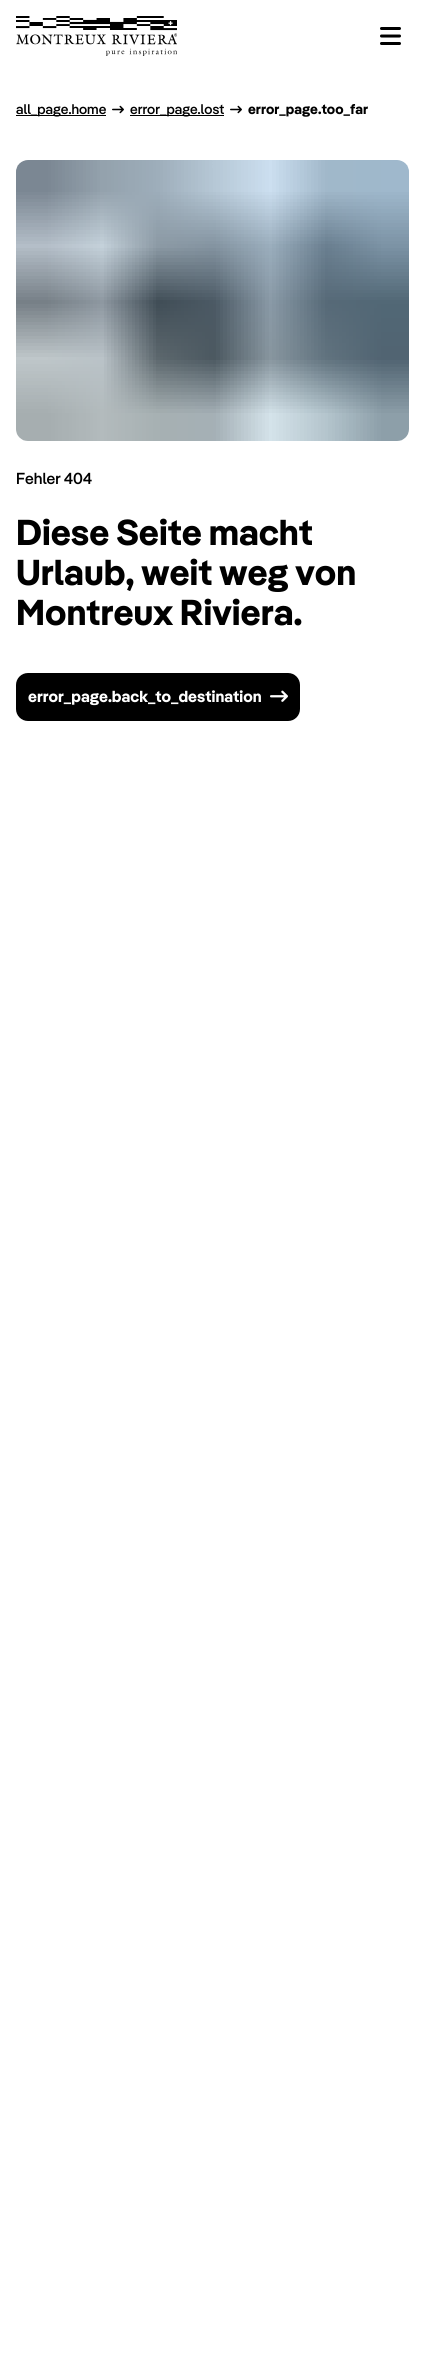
#include <cairo/cairo.h>
#include <math.h>
#include <stddef.h>

typedef struct { double x, y; const char *s; } line_t;
static cairo_t *cr;

static void rgb(unsigned color)
{
	cairo_set_source_rgb(cr, (color >> 16) / 255.0, (color >> 8 & 255) / 255.0, (color & 255) / 255.0);
}

static void rrect(double x, double y, double w, double h, double r)
{
	cairo_new_sub_path(cr);
	cairo_arc(cr, x + w - r, y + h - r, r, 0, M_PI / 2);
	cairo_arc(cr, x + r, y + h - r, r, M_PI / 2, M_PI);
	cairo_arc(cr, x + r, y + r, r, M_PI, 1.5 * M_PI);
	cairo_arc(cr, x + w - r, y + r, r, 1.5 * M_PI, 2 * M_PI);
	cairo_close_path(cr);
}

static void image(const char *path, double x, double y, double w, double h)
{
	cairo_surface_t *image = cairo_image_surface_create_from_png(path);
	cairo_save(cr);
	cairo_set_source_surface(cr, image, x, y);
	cairo_rectangle(cr, x, y, w, h);
	cairo_fill(cr);
	cairo_restore(cr);
	cairo_surface_destroy(image);
}

int main(void) {
	cairo_surface_t *surface = cairo_image_surface_create(CAIRO_FORMAT_RGB24, 425, 2366);
	cr = cairo_create(surface);
	cairo_font_options_t *options = cairo_font_options_create();
	cairo_font_options_set_hint_metrics(options, CAIRO_HINT_METRICS_OFF);
	cairo_font_options_set_hint_style(options, CAIRO_HINT_STYLE_NONE);
	cairo_set_font_options(cr, options);
	cairo_set_miter_limit(cr, 4);
	rgb(0xffffff);
	cairo_paint(cr);
	image("img/1.png", 16, 16, 161, 40);
	image("img/2.png", 380, 27, 21, 18);
	rgb(0x000000);
	cairo_rectangle(cr, 16, 115, 90, 1);
	cairo_fill(cr);
	image("img/3.png", 112, 105, 12, 9);
	cairo_rectangle(cr, 130, 115, 94, 1);
	cairo_fill(cr);
	image("img/3.png", 230, 105, 12, 9);
	image("img/4.png", 16, 160, 393, 281);
	rrect(16, 673, 284, 48, 12);
	cairo_fill(cr);
	image("img/5.png", 270, 690, 18, 12);
	cairo_select_font_face(cr, "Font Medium", CAIRO_FONT_SLANT_NORMAL, CAIRO_FONT_WEIGHT_NORMAL);
	cairo_set_font_size(cr, 14);
	cairo_move_to(cr, 16, 114);
	cairo_show_text(cr, "all_page.home");
	cairo_save(cr);
	cairo_rectangle(cr, 130, 100, 94, 20);
	cairo_clip(cr);
	cairo_move_to(cr, 130, 114);
	cairo_show_text(cr, "error_page.lost");
	cairo_restore(cr);
	cairo_save(cr);
	cairo_rectangle(cr, 248, 100, 120, 20);
	cairo_clip(cr);
	cairo_select_font_face(cr, "Font", CAIRO_FONT_SLANT_NORMAL, CAIRO_FONT_WEIGHT_BOLD);
	cairo_move_to(cr, 248, 114);
	cairo_show_text(cr, "error_page.too_far");
	cairo_restore(cr);
	cairo_set_font_size(cr, 16);
	cairo_move_to(cr, 16, 484);
	cairo_show_text(cr, "Fehler 404");
	cairo_select_font_face(cr, "Font", CAIRO_FONT_SLANT_NORMAL, CAIRO_FONT_WEIGHT_BOLD);
	cairo_set_font_size(cr, 36);
	{
		static const line_t items[] = {
			{16, 545, "Diese Seite macht"},
			{16, 585, "Urlaub, weit weg von"},
			{16, 625, "Montreux Riviera."},
		};
		for (size_t i = 0; i < sizeof items / sizeof *items; i++) {
			cairo_move_to(cr, items[i].x, items[i].y);
			cairo_show_text(cr, items[i].s);
		}
	}
	cairo_set_font_size(cr, 16);
	rgb(0xffffff);
	cairo_move_to(cr, 28, 702);
	cairo_show_text(cr, "error_page.back_to_destination");
	cairo_surface_write_to_png(surface, "page.png");
	cairo_font_options_destroy(options);
	cairo_destroy(cr);
	cairo_surface_destroy(surface);
	return 0;
}
